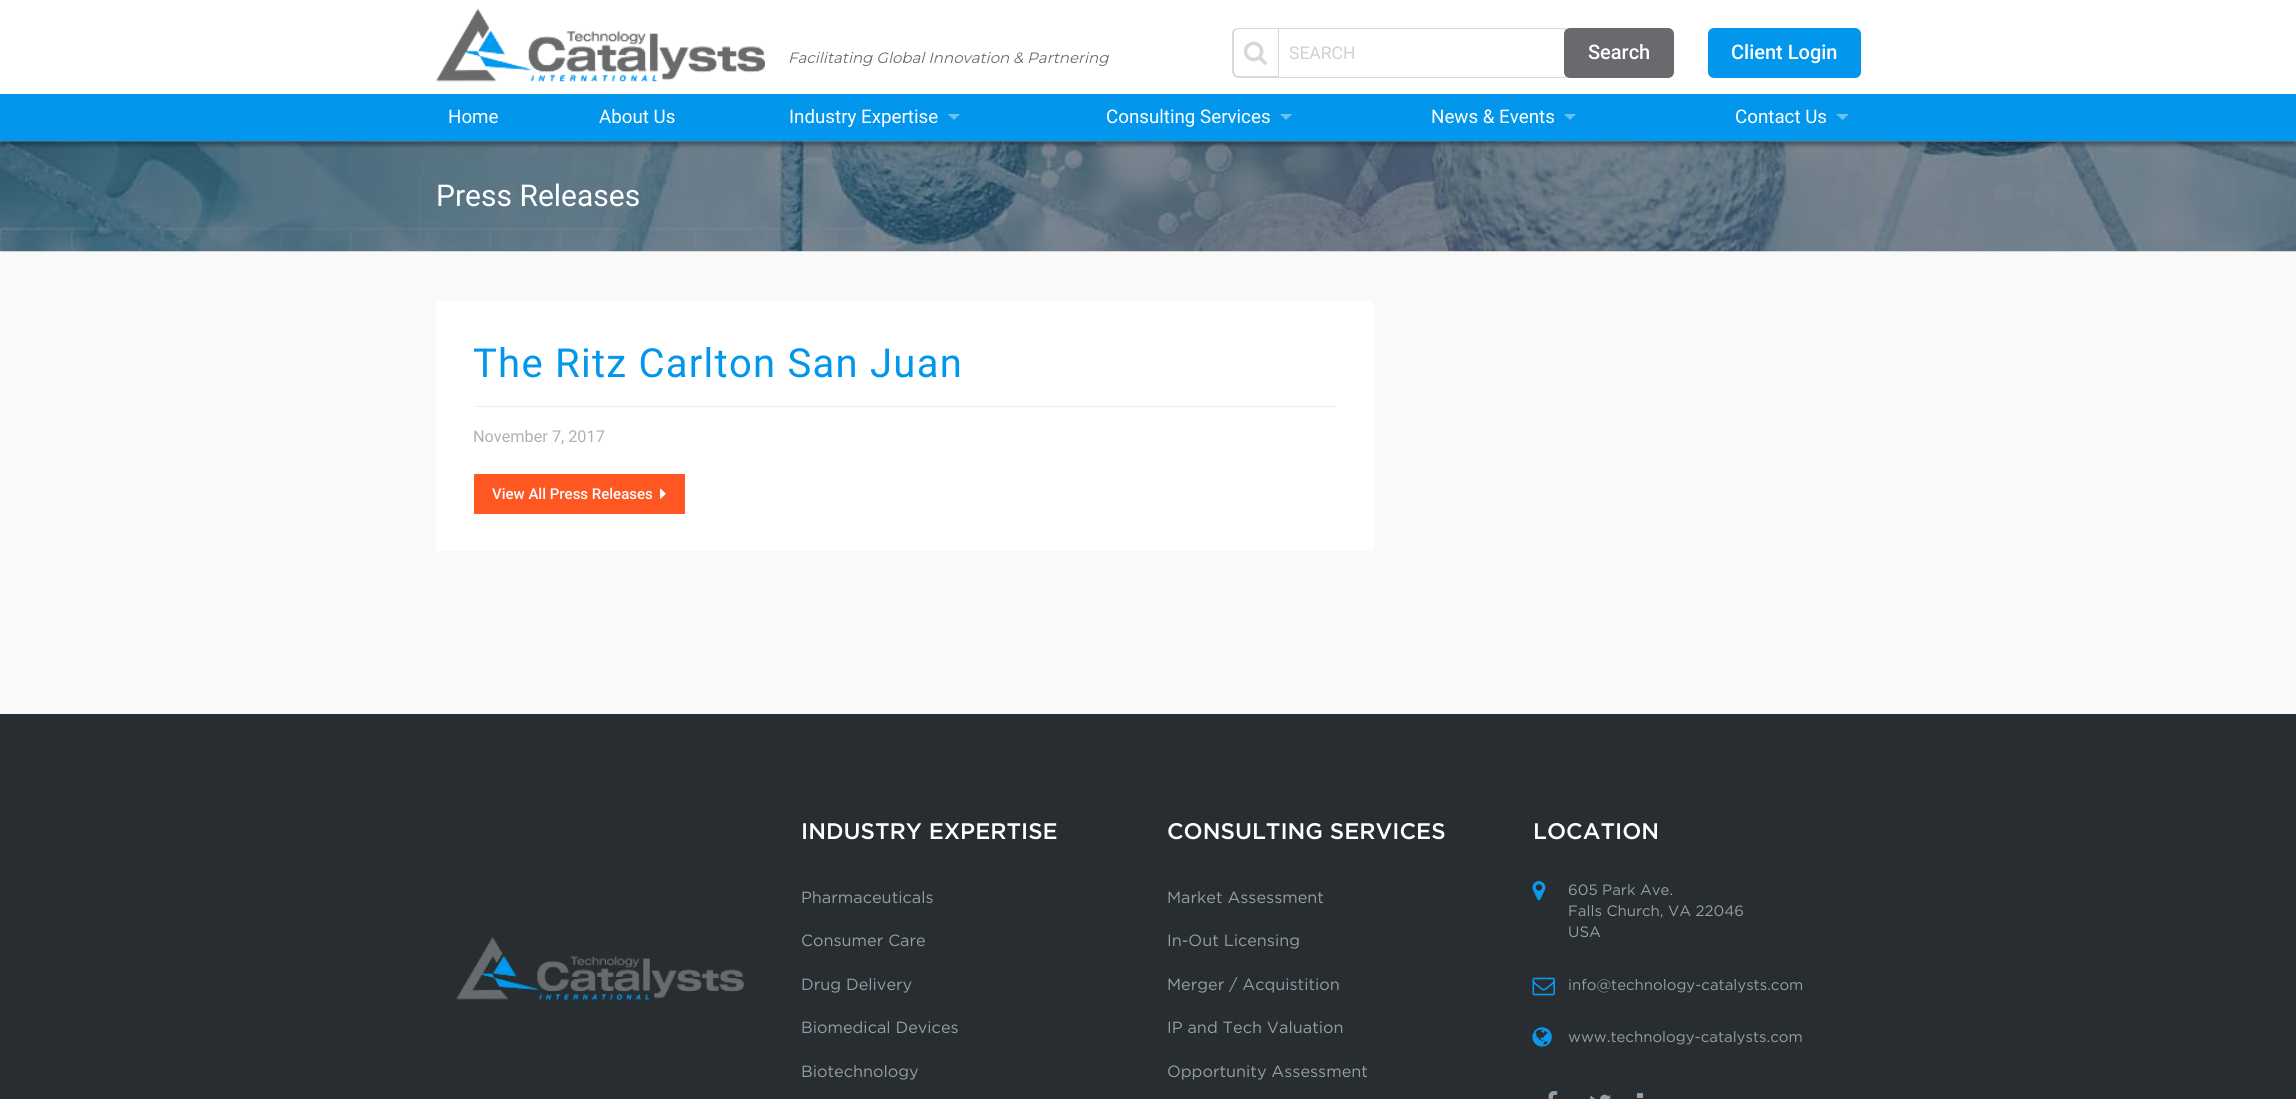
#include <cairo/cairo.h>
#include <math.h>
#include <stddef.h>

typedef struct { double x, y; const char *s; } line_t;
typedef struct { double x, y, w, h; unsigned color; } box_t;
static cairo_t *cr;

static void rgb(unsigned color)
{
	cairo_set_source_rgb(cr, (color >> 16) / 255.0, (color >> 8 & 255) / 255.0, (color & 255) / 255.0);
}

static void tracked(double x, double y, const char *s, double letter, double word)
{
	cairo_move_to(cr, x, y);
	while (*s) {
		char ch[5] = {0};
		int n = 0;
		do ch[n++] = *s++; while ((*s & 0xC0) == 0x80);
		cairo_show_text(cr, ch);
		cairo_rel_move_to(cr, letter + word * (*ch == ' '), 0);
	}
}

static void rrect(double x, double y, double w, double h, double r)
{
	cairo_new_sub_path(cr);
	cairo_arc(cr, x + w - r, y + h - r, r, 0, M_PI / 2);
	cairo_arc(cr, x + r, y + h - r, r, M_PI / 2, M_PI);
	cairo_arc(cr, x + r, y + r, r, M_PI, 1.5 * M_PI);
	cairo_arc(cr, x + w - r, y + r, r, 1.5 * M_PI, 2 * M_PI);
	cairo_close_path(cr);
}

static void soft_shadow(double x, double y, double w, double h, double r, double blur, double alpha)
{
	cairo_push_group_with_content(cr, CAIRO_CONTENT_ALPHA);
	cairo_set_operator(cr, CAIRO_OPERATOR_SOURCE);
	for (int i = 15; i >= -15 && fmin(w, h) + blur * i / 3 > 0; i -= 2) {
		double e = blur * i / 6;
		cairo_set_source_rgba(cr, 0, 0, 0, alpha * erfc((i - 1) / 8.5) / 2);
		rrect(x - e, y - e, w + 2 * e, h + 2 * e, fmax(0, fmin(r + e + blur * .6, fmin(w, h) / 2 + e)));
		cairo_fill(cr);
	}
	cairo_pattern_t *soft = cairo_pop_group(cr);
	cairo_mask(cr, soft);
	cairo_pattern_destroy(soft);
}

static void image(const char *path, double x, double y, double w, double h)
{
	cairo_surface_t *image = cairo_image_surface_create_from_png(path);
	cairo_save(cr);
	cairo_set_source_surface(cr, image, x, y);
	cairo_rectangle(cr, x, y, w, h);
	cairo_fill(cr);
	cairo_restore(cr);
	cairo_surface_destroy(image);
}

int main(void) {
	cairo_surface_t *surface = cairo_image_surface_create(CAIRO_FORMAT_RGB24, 2296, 1099);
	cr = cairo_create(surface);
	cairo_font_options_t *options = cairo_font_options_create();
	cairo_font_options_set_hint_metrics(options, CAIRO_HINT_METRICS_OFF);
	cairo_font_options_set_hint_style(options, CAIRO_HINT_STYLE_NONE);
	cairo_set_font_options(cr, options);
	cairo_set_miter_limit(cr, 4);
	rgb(0xffffff);
	cairo_paint(cr);
	rgb(0xf9f9f9);
	cairo_rectangle(cr, 0, 251, 2296, 463);
	cairo_fill(cr);
	image("img/3.png", 0, 141, 2296, 111);
	cairo_save(cr);
	cairo_rectangle(cr, 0, 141, 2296, 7);
	cairo_clip(cr);
	rgb(0x000000);
	soft_shadow(0, 4, 2296, 141, 0, 2, 0.35);
	cairo_restore(cr);
	image("img/1.png", 436, 8, 329, 74);
	rgb(0xd8d8d8);
	cairo_set_fill_rule(cr, CAIRO_FILL_RULE_EVEN_ODD);
	cairo_new_path(cr);
	cairo_move_to(cr, 1239, 28);
	cairo_line_to(cr, 1278, 28);
	cairo_line_to(cr, 1278, 78);
	cairo_line_to(cr, 1239, 78);
	cairo_curve_to(cr, 1235, 78, 1232, 75, 1232, 71);
	cairo_line_to(cr, 1232, 34);
	cairo_curve_to(cr, 1232, 30, 1235, 28, 1239, 28);
	cairo_close_path(cr);
	cairo_move_to(cr, 1239, 29);
	cairo_line_to(cr, 1278, 29);
	cairo_line_to(cr, 1278, 76);
	cairo_line_to(cr, 1239, 76);
	cairo_curve_to(cr, 1236, 76, 1234, 74, 1234, 71);
	cairo_line_to(cr, 1234, 34);
	cairo_curve_to(cr, 1234, 31, 1236, 29, 1239, 29);
	cairo_close_path(cr);
	cairo_fill(cr);
	image("img/2.png", 1243, 41, 24, 24);
	cairo_rectangle(cr, 1278.5, 28.5, 287, 49);
	cairo_set_line_width(cr, 1);
	cairo_stroke(cr);
	rgb(0x696a6d);
	rrect(1564, 28, 110, 50, 6);
	cairo_fill(cr);
	rgb(0x0297ec);
	rrect(1708, 28, 153, 50, 6);
	cairo_fill(cr);
	cairo_rectangle(cr, 0, 94, 2296, 47);
	cairo_fill(cr);
	rgb(0x67c1f4);
	cairo_set_fill_rule(cr, CAIRO_FILL_RULE_WINDING);
	cairo_new_path(cr);
	cairo_move_to(cr, 947.5, 114);
	cairo_line_to(cr, 960, 114);
	cairo_line_to(cr, 954, 120);
	cairo_close_path(cr);
	cairo_fill(cr);
	cairo_new_path(cr);
	cairo_move_to(cr, 1280, 114);
	cairo_line_to(cr, 1292.5, 114);
	cairo_line_to(cr, 1286, 120);
	cairo_close_path(cr);
	cairo_fill(cr);
	cairo_new_path(cr);
	cairo_move_to(cr, 1564, 114);
	cairo_line_to(cr, 1576, 114);
	cairo_line_to(cr, 1570, 120);
	cairo_close_path(cr);
	cairo_fill(cr);
	cairo_new_path(cr);
	cairo_move_to(cr, 1836, 114);
	cairo_line_to(cr, 1849, 114);
	cairo_line_to(cr, 1842.5, 120);
	cairo_close_path(cr);
	cairo_fill(cr);
	{
		static const box_t items[] = {
			{436, 301, 938, 250, 0xffffff},
			{474, 406, 862, 1, 0xeeeeee},
			{474, 474, 211, 40, 0xfe5722},
		};
		for (size_t i = 0; i < sizeof items / sizeof *items; i++) {
			rgb(items[i].color);
			cairo_rectangle(cr, items[i].x, items[i].y, items[i].w, items[i].h);
			cairo_fill(cr);
		}
	}
	image("img/4.png", 660, 488, 6, 11);
	rgb(0x272d30);
	cairo_rectangle(cr, 0, 714, 2296, 385);
	cairo_fill(cr);
	image("img/5.png", 456, 937, 288, 63);
	image("img/6.png", 1532, 881, 14, 20);
	image("img/7.png", 1532, 977, 23, 19);
	image("img/8.png", 1532, 1027, 20, 20);
	image("img/9.png", 1548, 1091, 10, 8);
	image("img/10.png", 1590, 1094, 22, 5);
	rgb(0x959ea3);
	cairo_rectangle(cr, 1637, 1093, 6, 5);
	cairo_fill(cr);
	cairo_select_font_face(cr, "Montserrat", CAIRO_FONT_SLANT_ITALIC, CAIRO_FONT_WEIGHT_NORMAL);
	cairo_set_font_size(cr, 15);
	rgb(0x696a6d);
	cairo_move_to(cr, 788, 63);
	cairo_show_text(cr, "Facilitating Global Innovation & Partnering");
	cairo_select_font_face(cr, "Roboto", CAIRO_FONT_SLANT_NORMAL, CAIRO_FONT_WEIGHT_NORMAL);
	cairo_set_font_size(cr, 17.5);
	rgb(0xd1d1d1);
	cairo_move_to(cr, 1289, 59);
	cairo_show_text(cr, "SEARCH");
	cairo_select_font_face(cr, "Roboto Medium", CAIRO_FONT_SLANT_NORMAL, CAIRO_FONT_WEIGHT_NORMAL);
	cairo_set_font_size(cr, 20);
	rgb(0xffffff);
	cairo_move_to(cr, 1588, 59);
	cairo_show_text(cr, "Search");
	cairo_move_to(cr, 1731, 59);
	cairo_show_text(cr, "Client Login");
	cairo_select_font_face(cr, "Roboto", CAIRO_FONT_SLANT_NORMAL, CAIRO_FONT_WEIGHT_NORMAL);
	cairo_set_font_size(cr, 18.75);
	{
		static const line_t items[] = {
			{448, 123, "Home"},
			{599, 123, "About Us"},
			{789, 123, "Industry Expertise"},
			{1106, 123, "Consulting Services"},
			{1431, 123, "News & Events"},
			{1735, 123, "Contact Us"},
		};
		for (size_t i = 0; i < sizeof items / sizeof *items; i++) {
			cairo_move_to(cr, items[i].x, items[i].y);
			cairo_show_text(cr, items[i].s);
		}
	}
	cairo_set_font_size(cr, 30);
	cairo_move_to(cr, 436, 206);
	cairo_show_text(cr, "Press Releases");
	cairo_set_font_size(cr, 40);
	rgb(0x0297ec);
	tracked(473, 377, "The Ritz Carlton San Juan", 1.25, 0);
	cairo_set_font_size(cr, 16.25);
	rgb(0xb1b1b1);
	cairo_move_to(cr, 473, 442);
	cairo_show_text(cr, "November 7, 2017");
	cairo_select_font_face(cr, "Roboto Medium", CAIRO_FONT_SLANT_NORMAL, CAIRO_FONT_WEIGHT_NORMAL);
	cairo_set_font_size(cr, 15);
	rgb(0xffffff);
	cairo_move_to(cr, 492, 499);
	cairo_show_text(cr, "View All Press Releases");
	cairo_select_font_face(cr, "Gotham Medium", CAIRO_FONT_SLANT_NORMAL, CAIRO_FONT_WEIGHT_NORMAL);
	cairo_set_font_size(cr, 22.5);
	cairo_move_to(cr, 801, 839);
	cairo_show_text(cr, "INDUSTRY EXPERTISE");
	cairo_select_font_face(cr, "Gotham", CAIRO_FONT_SLANT_NORMAL, CAIRO_FONT_WEIGHT_NORMAL);
	cairo_set_font_size(cr, 16.25);
	rgb(0x959ea3);
	{
		static const line_t items[] = {
			{801, 903, "Pharmaceuticals"},
			{801, 946, "Consumer Care"},
			{801, 990, "Drug Delivery"},
			{801, 1033, "Biomedical Devices"},
			{801, 1077, "Biotechnology"},
		};
		for (size_t i = 0; i < sizeof items / sizeof *items; i++) {
			cairo_move_to(cr, items[i].x, items[i].y);
			cairo_show_text(cr, items[i].s);
		}
	}
	cairo_select_font_face(cr, "Gotham Medium", CAIRO_FONT_SLANT_NORMAL, CAIRO_FONT_WEIGHT_NORMAL);
	cairo_set_font_size(cr, 22.5);
	rgb(0xffffff);
	cairo_move_to(cr, 1167, 839);
	cairo_show_text(cr, "CONSULTING SERVICES");
	cairo_select_font_face(cr, "Gotham", CAIRO_FONT_SLANT_NORMAL, CAIRO_FONT_WEIGHT_NORMAL);
	cairo_set_font_size(cr, 16.25);
	rgb(0x959ea3);
	{
		static const line_t items[] = {
			{1167, 903, "Market Assessment"},
			{1167, 946, "In-Out Licensing"},
			{1167, 990, "Merger / Acquistition"},
			{1167, 1033, "IP and Tech Valuation"},
			{1167, 1077, "Opportunity Assessment"},
		};
		for (size_t i = 0; i < sizeof items / sizeof *items; i++) {
			cairo_move_to(cr, items[i].x, items[i].y);
			cairo_show_text(cr, items[i].s);
		}
	}
	cairo_select_font_face(cr, "Gotham Medium", CAIRO_FONT_SLANT_NORMAL, CAIRO_FONT_WEIGHT_NORMAL);
	cairo_set_font_size(cr, 22.5);
	rgb(0xffffff);
	cairo_move_to(cr, 1533, 839);
	cairo_show_text(cr, "LOCATION");
	cairo_select_font_face(cr, "Gotham", CAIRO_FONT_SLANT_NORMAL, CAIRO_FONT_WEIGHT_NORMAL);
	cairo_set_font_size(cr, 15);
	rgb(0x959ea3);
	{
		static const line_t items[] = {
			{1568, 895, "605 Park Ave."},
			{1568, 916, "Falls Church, VA 22046"},
			{1568, 937, "USA"},
			{1568, 990, "info@technology-catalysts.com"},
			{1568, 1042, "www.technology-catalysts.com"},
		};
		for (size_t i = 0; i < sizeof items / sizeof *items; i++) {
			cairo_move_to(cr, items[i].x, items[i].y);
			cairo_show_text(cr, items[i].s);
		}
	}
	cairo_surface_write_to_png(surface, "page.png");
	cairo_font_options_destroy(options);
	cairo_destroy(cr);
	cairo_surface_destroy(surface);
	return 0;
}
